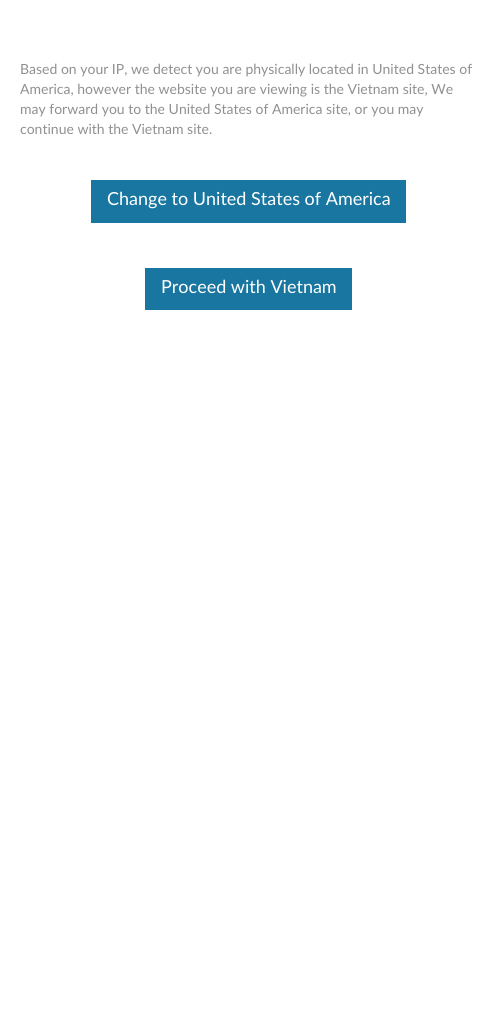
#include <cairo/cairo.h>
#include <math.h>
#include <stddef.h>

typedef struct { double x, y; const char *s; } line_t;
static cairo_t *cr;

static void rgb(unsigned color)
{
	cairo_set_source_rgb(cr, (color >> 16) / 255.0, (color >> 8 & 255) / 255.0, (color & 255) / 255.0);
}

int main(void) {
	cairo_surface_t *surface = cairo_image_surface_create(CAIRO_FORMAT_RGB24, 497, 1011);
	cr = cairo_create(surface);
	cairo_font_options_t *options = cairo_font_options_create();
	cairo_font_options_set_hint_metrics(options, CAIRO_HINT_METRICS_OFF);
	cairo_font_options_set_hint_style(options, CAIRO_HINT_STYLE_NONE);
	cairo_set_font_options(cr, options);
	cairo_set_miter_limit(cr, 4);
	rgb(0xffffff);
	cairo_paint(cr);
	rgb(0x1976a1);
	cairo_rectangle(cr, 91, 180, 315, 43);
	cairo_fill(cr);
	cairo_rectangle(cr, 145, 268, 207, 42);
	cairo_fill(cr);
	cairo_select_font_face(cr, "Lato", CAIRO_FONT_SLANT_NORMAL, CAIRO_FONT_WEIGHT_NORMAL);
	cairo_set_font_size(cr, 14);
	rgb(0x909090);
	{
		static const line_t items[] = {
			{20, 74, "Based on your IP, we detect you are physically located in United States of"},
			{20, 94, "America, however the website you are viewing is the Vietnam site, We"},
			{20, 114, "may forward you to the United States of America site, or you may"},
			{20, 134, "continue with the Vietnam site."},
		};
		for (size_t i = 0; i < sizeof items / sizeof *items; i++) {
			cairo_move_to(cr, items[i].x, items[i].y);
			cairo_show_text(cr, items[i].s);
		}
	}
	cairo_set_font_size(cr, 18);
	rgb(0xffffff);
	cairo_move_to(cr, 107, 205);
	cairo_show_text(cr, "Change to United States of America");
	cairo_move_to(cr, 161, 293);
	cairo_show_text(cr, "Proceed with Vietnam");
	cairo_surface_write_to_png(surface, "page.png");
	cairo_font_options_destroy(options);
	cairo_destroy(cr);
	cairo_surface_destroy(surface);
	return 0;
}
